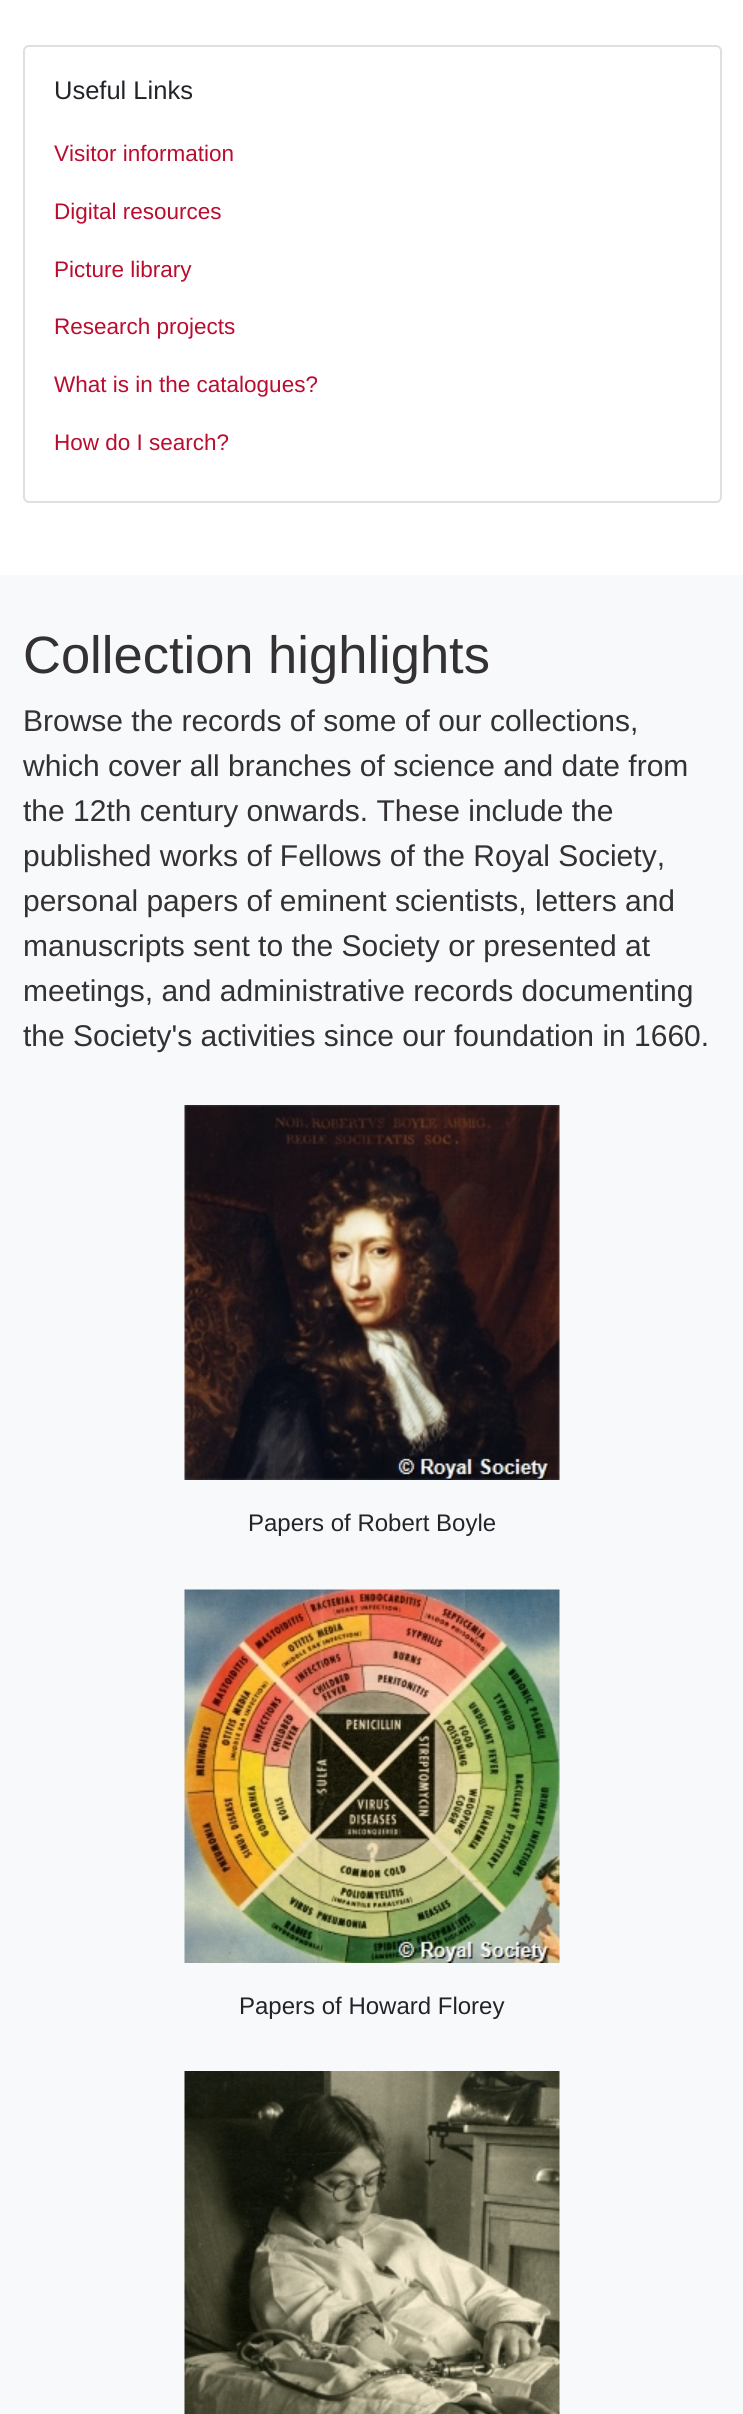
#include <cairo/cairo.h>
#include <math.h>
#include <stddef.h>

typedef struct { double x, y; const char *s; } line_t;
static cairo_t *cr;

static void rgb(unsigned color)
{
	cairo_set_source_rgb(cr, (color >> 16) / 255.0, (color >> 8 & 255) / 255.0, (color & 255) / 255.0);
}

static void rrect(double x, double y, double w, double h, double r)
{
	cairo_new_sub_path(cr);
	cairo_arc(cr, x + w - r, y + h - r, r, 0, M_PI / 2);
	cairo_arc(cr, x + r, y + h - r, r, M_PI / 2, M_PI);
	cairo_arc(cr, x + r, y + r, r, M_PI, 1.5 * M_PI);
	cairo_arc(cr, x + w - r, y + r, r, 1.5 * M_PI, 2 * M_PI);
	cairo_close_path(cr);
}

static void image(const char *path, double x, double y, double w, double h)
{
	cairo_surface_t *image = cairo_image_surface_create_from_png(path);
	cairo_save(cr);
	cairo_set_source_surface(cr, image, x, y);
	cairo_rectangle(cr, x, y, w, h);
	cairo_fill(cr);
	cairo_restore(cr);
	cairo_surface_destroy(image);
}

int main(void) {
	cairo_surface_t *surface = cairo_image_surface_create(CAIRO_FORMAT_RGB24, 743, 2414);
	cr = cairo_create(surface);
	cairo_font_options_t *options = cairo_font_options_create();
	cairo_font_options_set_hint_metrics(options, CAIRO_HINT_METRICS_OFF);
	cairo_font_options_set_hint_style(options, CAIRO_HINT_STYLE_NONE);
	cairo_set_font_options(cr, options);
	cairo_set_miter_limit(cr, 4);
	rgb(0xffffff);
	cairo_paint(cr);
	rrect(24, 46, 697, 456, 5);
	rgb(0xdfdfdf);
	cairo_stroke(cr);
	rgb(0xf8f9fa);
	cairo_rectangle(cr, 0, 575, 743, 1839);
	cairo_fill(cr);
	image("img/1.png", 184, 1105, 376, 375);
	image("img/2.png", 184, 1589, 376, 374);
	image("img/3.png", 184, 2071, 376, 343);
	cairo_select_font_face(cr, "Liberation Sans", CAIRO_FONT_SLANT_NORMAL, CAIRO_FONT_WEIGHT_NORMAL);
	cairo_set_font_size(cr, 25.5);
	rgb(0x212529);
	cairo_move_to(cr, 54, 99);
	cairo_show_text(cr, "Useful Links");
	cairo_set_font_size(cr, 22.5);
	rgb(0xba0c2f);
	{
		static const line_t items[] = {
			{54, 161, "Visitor information"},
			{54, 219, "Digital resources"},
			{54, 277, "Picture library"},
			{54, 334, "Research projects"},
			{54, 392, "What is in the catalogues?"},
			{54, 450, "How do I search?"},
		};
		for (size_t i = 0; i < sizeof items / sizeof *items; i++) {
			cairo_move_to(cr, items[i].x, items[i].y);
			cairo_show_text(cr, items[i].s);
		}
	}
	cairo_set_font_size(cr, 52.5);
	rgb(0x333132);
	cairo_move_to(cr, 23, 673);
	cairo_show_text(cr, "Collection highlights");
	cairo_set_font_size(cr, 30);
	{
		static const line_t items[] = {
			{23, 731, "Browse the records of some of our collections,"},
			{23, 776, "which cover all branches of science and date from"},
			{23, 821, "the 12th century onwards. These include the"},
			{23, 866, "published works of Fellows of the Royal Society,"},
			{23, 911, "personal papers of eminent scientists, letters and"},
			{23, 956, "manuscripts sent to the Society or presented at"},
			{23, 1001, "meetings, and administrative records documenting"},
			{23, 1046, "the Society's activities since our foundation in 1660."},
		};
		for (size_t i = 0; i < sizeof items / sizeof *items; i++) {
			cairo_move_to(cr, items[i].x, items[i].y);
			cairo_show_text(cr, items[i].s);
		}
	}
	cairo_set_font_size(cr, 24);
	rgb(0x212529);
	cairo_move_to(cr, 248, 1531);
	cairo_show_text(cr, "Papers of Robert Boyle");
	cairo_move_to(cr, 239, 2014);
	cairo_show_text(cr, "Papers of Howard Florey");
	cairo_surface_write_to_png(surface, "page.png");
	cairo_font_options_destroy(options);
	cairo_destroy(cr);
	cairo_surface_destroy(surface);
	return 0;
}
